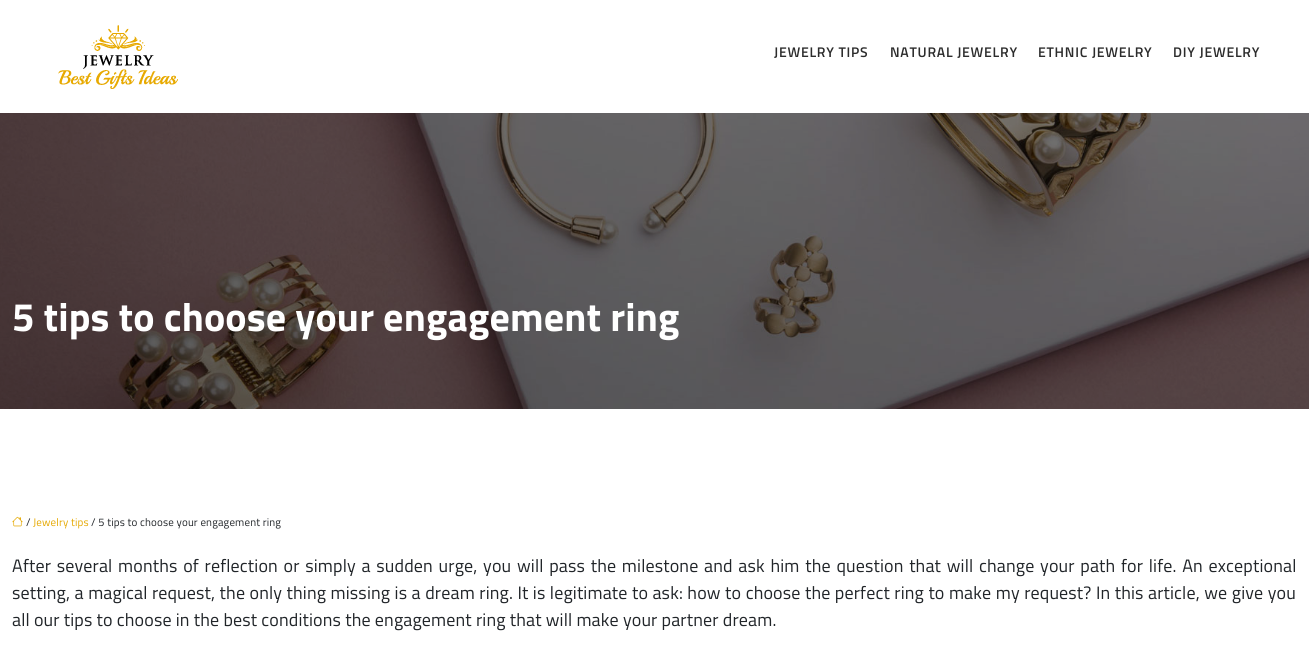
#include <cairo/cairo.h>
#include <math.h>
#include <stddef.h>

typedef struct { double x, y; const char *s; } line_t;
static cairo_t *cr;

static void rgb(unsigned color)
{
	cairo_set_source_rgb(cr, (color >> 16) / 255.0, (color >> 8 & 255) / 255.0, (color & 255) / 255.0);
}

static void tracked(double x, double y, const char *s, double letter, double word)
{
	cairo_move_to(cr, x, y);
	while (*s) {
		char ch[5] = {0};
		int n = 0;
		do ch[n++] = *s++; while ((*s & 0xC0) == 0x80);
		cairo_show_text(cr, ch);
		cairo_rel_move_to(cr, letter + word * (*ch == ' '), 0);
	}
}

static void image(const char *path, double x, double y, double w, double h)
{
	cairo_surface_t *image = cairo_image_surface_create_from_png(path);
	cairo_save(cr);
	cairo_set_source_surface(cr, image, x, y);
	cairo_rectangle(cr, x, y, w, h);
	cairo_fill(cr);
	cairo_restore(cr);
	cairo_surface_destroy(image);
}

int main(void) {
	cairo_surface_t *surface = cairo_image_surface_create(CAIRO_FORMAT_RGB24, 1309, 657);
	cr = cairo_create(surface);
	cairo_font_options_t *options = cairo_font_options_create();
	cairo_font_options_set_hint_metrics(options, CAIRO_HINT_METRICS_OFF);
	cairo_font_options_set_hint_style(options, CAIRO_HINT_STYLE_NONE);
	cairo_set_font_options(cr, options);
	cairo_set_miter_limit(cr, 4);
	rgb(0xffffff);
	cairo_paint(cr);
	image("img/1.png", 58, 25, 120, 64);
	image("img/2.png", 0, 113, 1309, 296);
	image("img/3.png", 12, 516, 11, 11);
	cairo_select_font_face(cr, "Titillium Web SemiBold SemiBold", CAIRO_FONT_SLANT_NORMAL, CAIRO_FONT_WEIGHT_NORMAL);
	cairo_set_font_size(cr, 14);
	rgb(0x2c2c2c);
	{
		static const line_t items[] = {
			{774, 57, "JEWELRY TIPS"},
			{890, 57, "NATURAL JEWELRY"},
			{1038, 57, "ETHNIC JEWELRY"},
			{1173, 57, "DIY JEWELRY"},
		};
		for (size_t i = 0; i < sizeof items / sizeof *items; i++) {
			tracked(items[i].x, items[i].y, items[i].s, 0.75, 0);
		}
	}
	cairo_select_font_face(cr, "Titillium Web", CAIRO_FONT_SLANT_NORMAL, CAIRO_FONT_WEIGHT_BOLD);
	cairo_set_font_size(cr, 40);
	rgb(0xffffff);
	tracked(12, 331, "5 tips to choose your engagement ring", 0.15, 0);
	cairo_select_font_face(cr, "Titillium Web", CAIRO_FONT_SLANT_NORMAL, CAIRO_FONT_WEIGHT_NORMAL);
	cairo_set_font_size(cr, 11);
	rgb(0x212529);
	tracked(26, 526, "/", 0.15, 0);
	rgb(0xe5a800);
	tracked(33, 526, "Jewelry tips", 0.15, 0);
	rgb(0x212529);
	tracked(91, 526, "/ 5 tips to choose your engagement ring", 0.15, 0);
	cairo_set_font_size(cr, 18);
	tracked(12, 572, "After several months of reflection or simply a sudden urge, you will pass the milestone and ask him the question that will change your path for life. An exceptional", 0.15, 1.55);
	tracked(12, 599, "setting, a magical request, the only thing missing is a dream ring. It is legitimate to ask: how to choose the perfect ring to make my request? In this article, we give you", 0.15, 0.3);
	tracked(12, 626, "all our tips to choose in the best conditions the engagement ring that will make your partner dream.", 0.15, 0);
	cairo_surface_write_to_png(surface, "page.png");
	cairo_font_options_destroy(options);
	cairo_destroy(cr);
	cairo_surface_destroy(surface);
	return 0;
}
